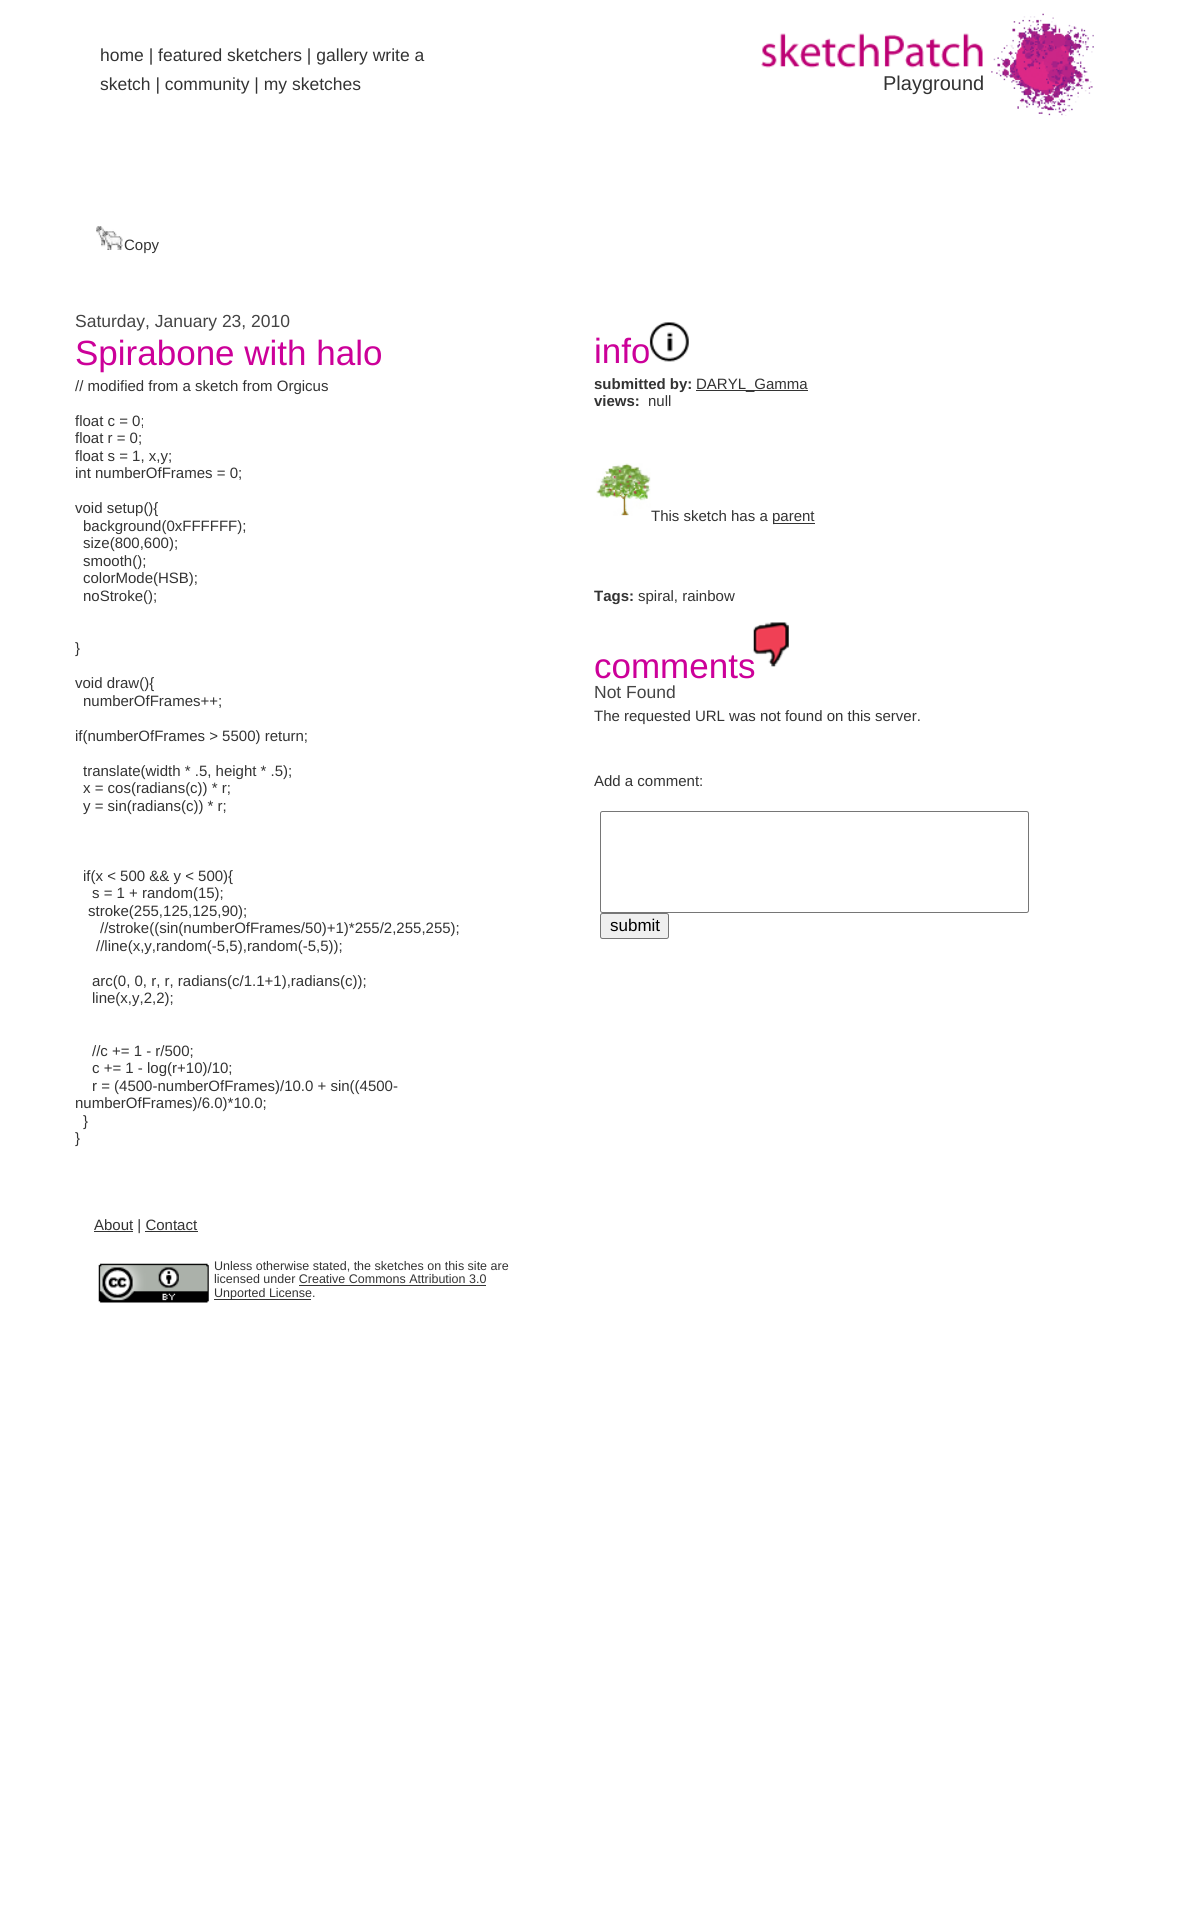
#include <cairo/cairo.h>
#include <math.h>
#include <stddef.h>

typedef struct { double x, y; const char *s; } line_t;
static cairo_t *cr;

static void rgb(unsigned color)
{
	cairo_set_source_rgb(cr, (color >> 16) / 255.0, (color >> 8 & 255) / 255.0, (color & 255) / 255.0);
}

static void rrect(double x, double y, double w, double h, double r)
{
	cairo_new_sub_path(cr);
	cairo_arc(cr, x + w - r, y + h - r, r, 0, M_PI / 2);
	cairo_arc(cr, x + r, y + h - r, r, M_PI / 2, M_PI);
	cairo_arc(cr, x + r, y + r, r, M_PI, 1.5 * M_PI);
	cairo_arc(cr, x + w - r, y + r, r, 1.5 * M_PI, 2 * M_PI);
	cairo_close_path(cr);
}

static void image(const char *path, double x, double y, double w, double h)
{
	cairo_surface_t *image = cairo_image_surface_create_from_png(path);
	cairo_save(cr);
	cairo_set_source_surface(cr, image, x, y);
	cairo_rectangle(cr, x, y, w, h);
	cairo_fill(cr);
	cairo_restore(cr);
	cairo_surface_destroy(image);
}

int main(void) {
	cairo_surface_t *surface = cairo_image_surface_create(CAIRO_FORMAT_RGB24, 1200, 1924);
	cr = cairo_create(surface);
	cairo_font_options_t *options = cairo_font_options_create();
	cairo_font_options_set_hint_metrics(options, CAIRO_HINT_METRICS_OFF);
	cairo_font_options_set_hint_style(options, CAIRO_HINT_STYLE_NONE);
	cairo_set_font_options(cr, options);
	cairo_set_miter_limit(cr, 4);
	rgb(0xffffff);
	cairo_paint(cr);
	image("img/1.png", 761, 13, 333, 103);
	image("img/2.png", 96, 226, 27, 24);
	rgb(0x333333);
	cairo_rectangle(cr, 696, 390, 112, 1);
	cairo_fill(cr);
	image("img/4.png", 596, 463, 55, 53);
	cairo_rectangle(cr, 773, 523, 42, 1);
	cairo_fill(cr);
	rrect(600.5, 811.5, 428, 101, 2);
	rgb(0x767676);
	cairo_set_line_width(cr, 1);
	cairo_stroke(cr);
	rgb(0xefefef);
	rrect(600.5, 913.5, 68, 25, 2);
	cairo_fill_preserve(cr);
	rgb(0x767676);
	cairo_stroke(cr);
	rgb(0x333333);
	cairo_rectangle(cr, 94, 1231, 39, 1);
	cairo_fill(cr);
	cairo_rectangle(cr, 145, 1231, 53, 1);
	cairo_fill(cr);
	image("img/6.png", 98, 1263, 111, 40);
	cairo_rectangle(cr, 299, 1285, 187, 1);
	cairo_fill(cr);
	cairo_rectangle(cr, 214, 1299, 97, 1);
	cairo_fill(cr);
	cairo_select_font_face(cr, "Liberation Sans", CAIRO_FONT_SLANT_NORMAL, CAIRO_FONT_WEIGHT_NORMAL);
	cairo_set_font_size(cr, 17.5);
	cairo_move_to(cr, 100, 61);
	cairo_show_text(cr, "home | featured sketchers | gallery write a");
	cairo_move_to(cr, 100, 90);
	cairo_show_text(cr, "sketch | community | my sketches");
	cairo_set_font_size(cr, 20);
	cairo_move_to(cr, 883, 90);
	cairo_show_text(cr, "Playground");
	cairo_set_font_size(cr, 15);
	cairo_move_to(cr, 124, 250);
	cairo_show_text(cr, "Copy");
	cairo_set_font_size(cr, 17.5);
	rgb(0x444444);
	cairo_move_to(cr, 75, 327);
	cairo_show_text(cr, "Saturday, January 23, 2010");
	cairo_set_font_size(cr, 35);
	rgb(0xcc0099);
	cairo_move_to(cr, 75, 365);
	cairo_show_text(cr, "Spirabone with halo");
	cairo_set_font_size(cr, 15);
	rgb(0x333333);
	{
		static const line_t items[] = {
			{75, 391, "// modified from a sketch from Orgicus"},
			{75, 426, "float c = 0;"},
			{75, 443, "float r = 0;"},
			{75, 461, "float s = 1, x,y;"},
			{75, 478, "int numberOfFrames = 0;"},
			{75, 513, "void setup(){"},
			{83, 531, "background(0xFFFFFF);"},
			{83, 548, "size(800,600);"},
			{83, 566, "smooth();"},
			{83, 583, "colorMode(HSB);"},
			{83, 601, "noStroke();"},
			{75, 653, "}"},
			{75, 688, "void draw(){"},
			{83, 706, "numberOfFrames++;"},
			{75, 741, "if(numberOfFrames > 5500) return;"},
			{83, 776, "translate(width * .5, height * .5);"},
			{83, 793, "x = cos(radians(c)) * r;"},
			{83, 811, "y = sin(radians(c)) * r;"},
			{83, 881, "if(x < 500 && y < 500){"},
			{92, 898, "s = 1 + random(15);"},
			{88, 916, "stroke(255,125,125,90);"},
			{100, 933, "//stroke((sin(numberOfFrames/50)+1)*255/2,255,255);"},
			{96, 951, "//line(x,y,random(-5,5),random(-5,5));"},
			{92, 986, "arc(0, 0, r, r, radians(c/1.1+1),radians(c));"},
			{92, 1003, "line(x,y,2,2);"},
			{92, 1056, "//c += 1 - r/500;"},
			{92, 1073, "c += 1 - log(r+10)/10;"},
			{92, 1091, "r = (4500-numberOfFrames)/10.0 + sin((4500-"},
			{75, 1108, "numberOfFrames)/6.0)*10.0;"},
			{83, 1126, "}"},
			{75, 1143, "}"},
		};
		for (size_t i = 0; i < sizeof items / sizeof *items; i++) {
			cairo_move_to(cr, items[i].x, items[i].y);
			cairo_show_text(cr, items[i].s);
		}
	}
	cairo_set_font_size(cr, 35);
	rgb(0xcc0099);
	cairo_move_to(cr, 594, 363);
	cairo_show_text(cr, "info");
	image("img/3.png", 648, 322, 41, 40);
	cairo_select_font_face(cr, "Liberation Sans", CAIRO_FONT_SLANT_NORMAL, CAIRO_FONT_WEIGHT_BOLD);
	cairo_set_font_size(cr, 15);
	rgb(0x333333);
	cairo_move_to(cr, 594, 389);
	cairo_show_text(cr, "submitted by:");
	cairo_select_font_face(cr, "Liberation Sans", CAIRO_FONT_SLANT_NORMAL, CAIRO_FONT_WEIGHT_NORMAL);
	cairo_move_to(cr, 696, 389);
	cairo_show_text(cr, "DARYL_Gamma");
	cairo_select_font_face(cr, "Liberation Sans", CAIRO_FONT_SLANT_NORMAL, CAIRO_FONT_WEIGHT_BOLD);
	cairo_move_to(cr, 594, 406);
	cairo_show_text(cr, "views:");
	cairo_select_font_face(cr, "Liberation Sans", CAIRO_FONT_SLANT_NORMAL, CAIRO_FONT_WEIGHT_NORMAL);
	{
		static const line_t items[] = {
			{648, 406, "null"},
			{651, 521, "This sketch has a"},
			{772, 521, "parent"},
		};
		for (size_t i = 0; i < sizeof items / sizeof *items; i++) {
			cairo_move_to(cr, items[i].x, items[i].y);
			cairo_show_text(cr, items[i].s);
		}
	}
	cairo_select_font_face(cr, "Liberation Sans", CAIRO_FONT_SLANT_NORMAL, CAIRO_FONT_WEIGHT_BOLD);
	cairo_move_to(cr, 594, 601);
	cairo_show_text(cr, "Tags:");
	cairo_select_font_face(cr, "Liberation Sans", CAIRO_FONT_SLANT_NORMAL, CAIRO_FONT_WEIGHT_NORMAL);
	cairo_move_to(cr, 638, 601);
	cairo_show_text(cr, "spiral, rainbow");
	cairo_set_font_size(cr, 35);
	rgb(0xcc0099);
	cairo_move_to(cr, 594, 678);
	cairo_show_text(cr, "comments");
	image("img/5.png", 753, 622, 36, 45);
	cairo_set_font_size(cr, 17.5);
	rgb(0x444444);
	cairo_move_to(cr, 594, 698);
	cairo_show_text(cr, "Not Found");
	cairo_set_font_size(cr, 15);
	rgb(0x333333);
	cairo_move_to(cr, 594, 721);
	cairo_show_text(cr, "The requested URL was not found on this server.");
	cairo_move_to(cr, 594, 786);
	cairo_show_text(cr, "Add a comment:");
	cairo_set_font_size(cr, 17);
	rgb(0x000000);
	cairo_move_to(cr, 610, 931);
	cairo_show_text(cr, "submit");
	cairo_set_font_size(cr, 15);
	rgb(0x333333);
	cairo_move_to(cr, 94, 1230);
	cairo_show_text(cr, "About | Contact");
	cairo_set_font_size(cr, 12.5);
	{
		static const line_t items[] = {
			{214, 1270, "Unless otherwise stated, the sketches on this site are"},
			{214, 1283, "licensed under Creative Commons Attribution 3.0"},
			{214, 1297, "Unported License."},
		};
		for (size_t i = 0; i < sizeof items / sizeof *items; i++) {
			cairo_move_to(cr, items[i].x, items[i].y);
			cairo_show_text(cr, items[i].s);
		}
	}
	cairo_surface_write_to_png(surface, "page.png");
	cairo_font_options_destroy(options);
	cairo_destroy(cr);
	cairo_surface_destroy(surface);
	return 0;
}
